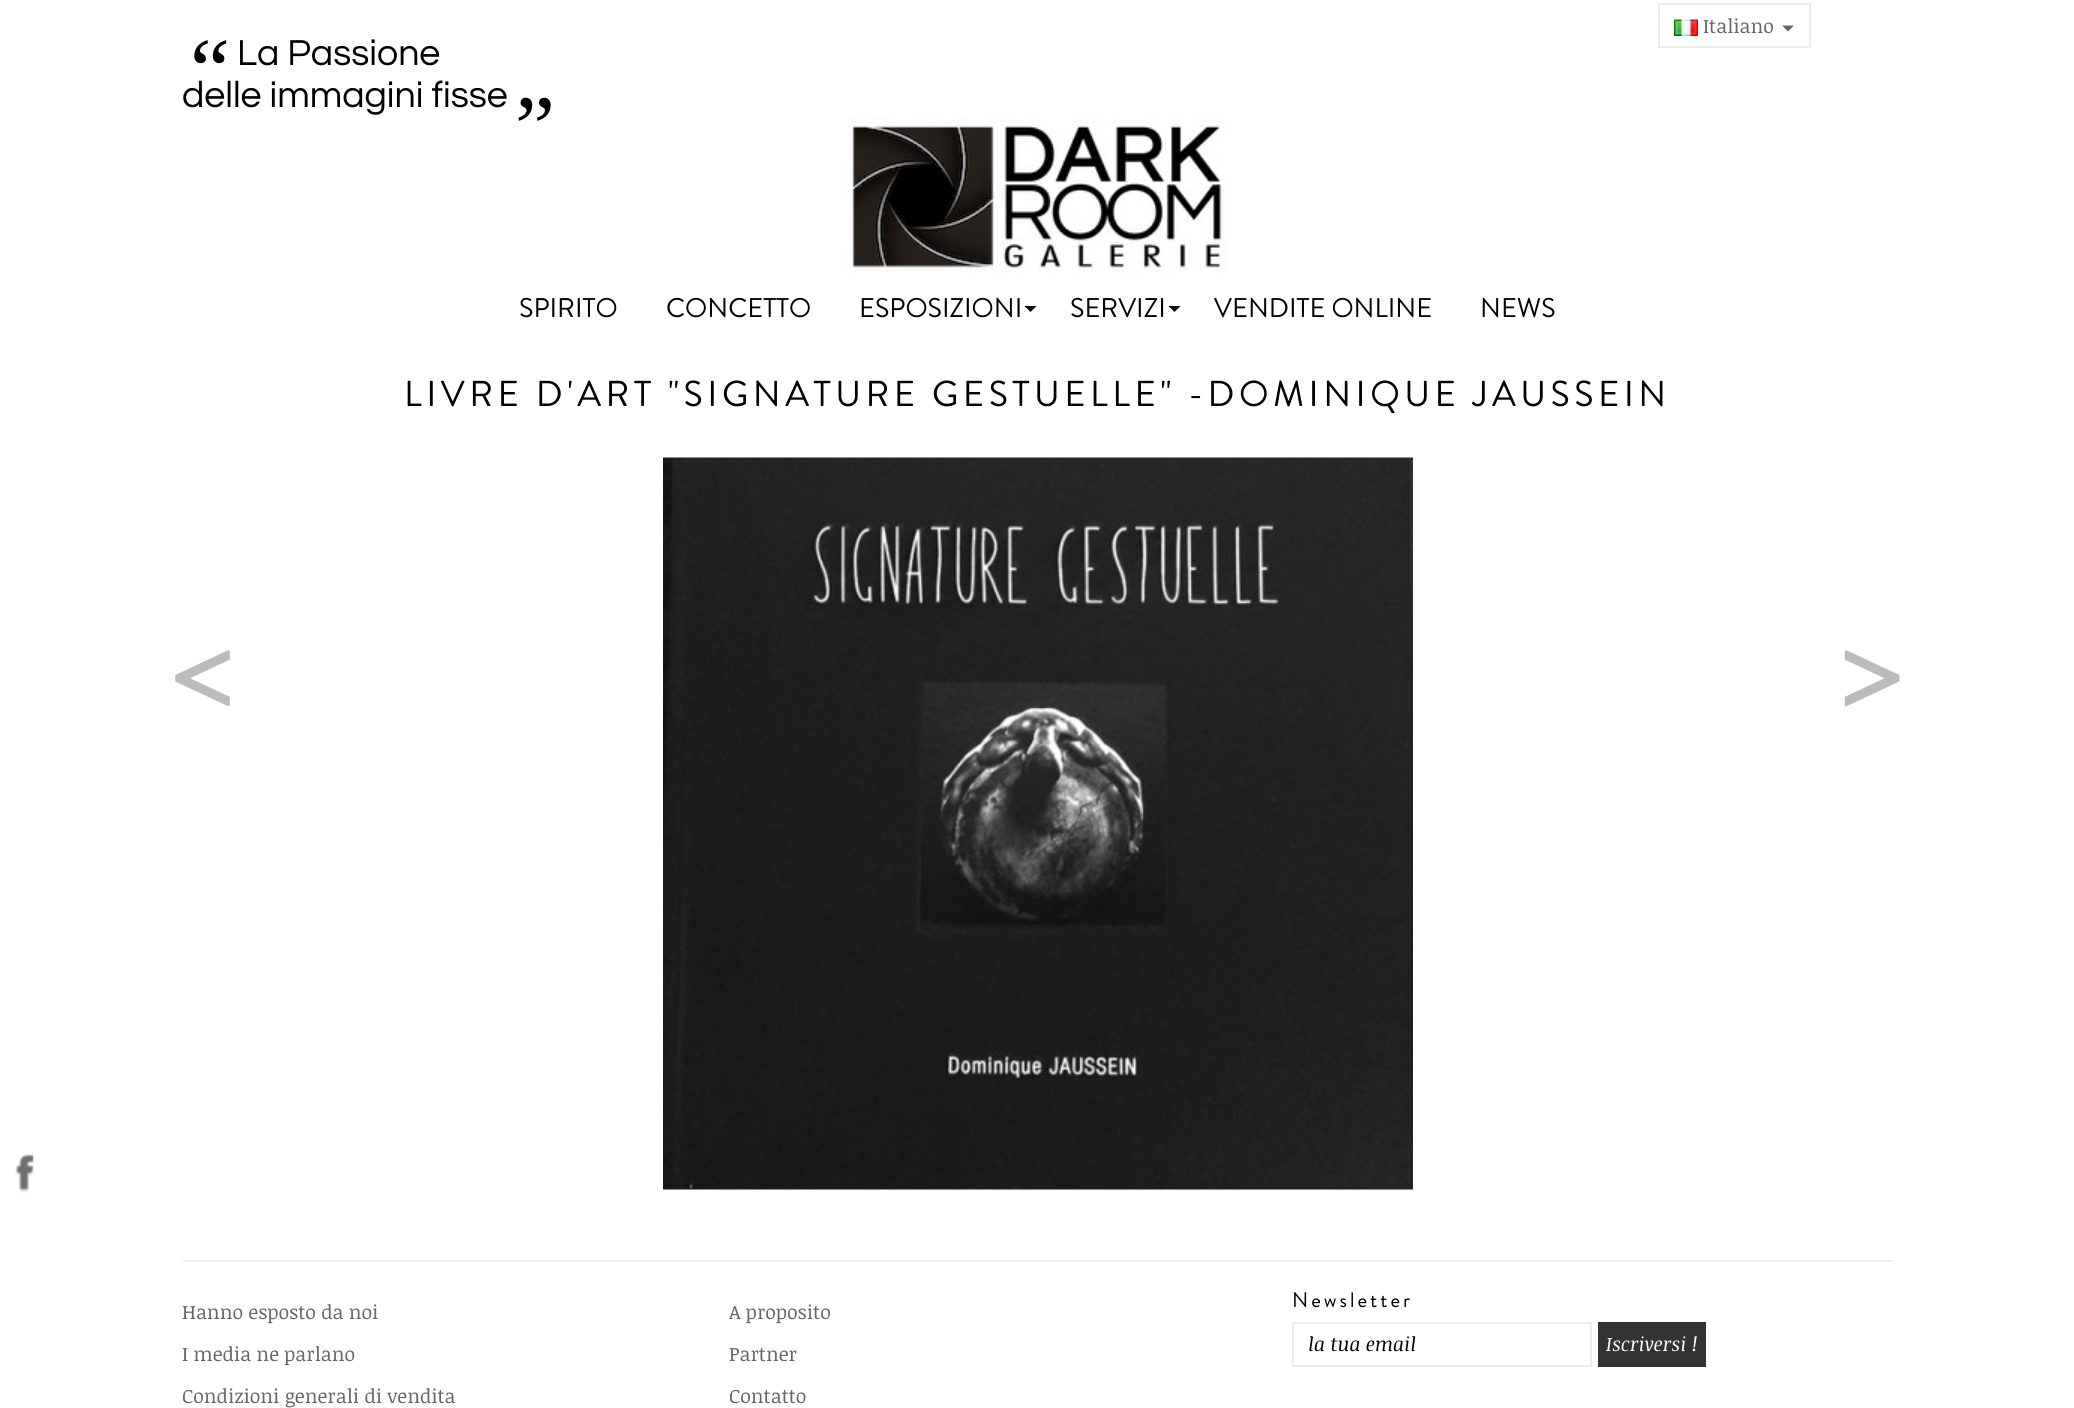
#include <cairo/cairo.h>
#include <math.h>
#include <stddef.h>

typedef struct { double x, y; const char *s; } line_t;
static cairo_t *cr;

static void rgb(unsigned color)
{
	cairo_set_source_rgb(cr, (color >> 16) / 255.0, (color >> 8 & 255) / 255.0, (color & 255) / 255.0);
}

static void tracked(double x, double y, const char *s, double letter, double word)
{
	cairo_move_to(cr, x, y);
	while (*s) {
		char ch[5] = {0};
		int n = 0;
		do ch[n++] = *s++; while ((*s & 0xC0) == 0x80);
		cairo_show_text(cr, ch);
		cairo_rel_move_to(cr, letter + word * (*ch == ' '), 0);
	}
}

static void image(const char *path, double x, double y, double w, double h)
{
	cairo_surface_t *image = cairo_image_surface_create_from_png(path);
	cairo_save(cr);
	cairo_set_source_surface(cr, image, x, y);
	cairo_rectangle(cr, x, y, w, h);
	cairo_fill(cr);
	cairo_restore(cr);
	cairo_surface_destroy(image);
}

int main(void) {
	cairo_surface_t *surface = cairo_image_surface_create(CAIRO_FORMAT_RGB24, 2074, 1408);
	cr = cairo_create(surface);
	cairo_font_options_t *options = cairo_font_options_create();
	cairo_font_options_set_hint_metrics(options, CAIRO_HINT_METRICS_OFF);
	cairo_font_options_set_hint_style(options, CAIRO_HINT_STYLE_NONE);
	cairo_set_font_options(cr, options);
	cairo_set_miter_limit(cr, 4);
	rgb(0xffffff);
	cairo_paint(cr);
	image("img/1.png", 15, 1154, 20, 39);
	cairo_rectangle(cr, 1659, 4, 151, 43);
	rgb(0xededed);
	cairo_stroke(cr);
	image("img/2.png", 1674, 19, 24, 17);
	rgb(0x666666);
	cairo_new_path(cr);
	cairo_move_to(cr, 1782, 25.5);
	cairo_line_to(cr, 1794, 25.5);
	cairo_line_to(cr, 1788, 31.5);
	cairo_close_path(cr);
	cairo_fill(cr);
	image("img/3.png", 846, 117, 383, 156);
	rgb(0x000000);
	cairo_new_path(cr);
	cairo_move_to(cr, 1024.5, 306);
	cairo_line_to(cr, 1036.5, 306);
	cairo_line_to(cr, 1030.5, 312);
	cairo_close_path(cr);
	cairo_fill(cr);
	cairo_new_path(cr);
	cairo_move_to(cr, 1168.5, 306);
	cairo_line_to(cr, 1180.5, 306);
	cairo_line_to(cr, 1174.5, 312);
	cairo_close_path(cr);
	cairo_fill(cr);
	image("img/4.png", 663, 457, 750, 735);
	rgb(0xededed);
	cairo_rectangle(cr, 183, 1260, 1710, 2);
	cairo_fill(cr);
	cairo_rectangle(cr, 1293, 1323, 298, 43);
	cairo_stroke(cr);
	rgb(0x333333);
	cairo_rectangle(cr, 1598, 1322, 108, 45);
	cairo_fill(cr);
	cairo_select_font_face(cr, "Noticia Text", CAIRO_FONT_SLANT_NORMAL, CAIRO_FONT_WEIGHT_NORMAL);
	cairo_set_font_size(cr, 19.5);
	rgb(0x666666);
	cairo_move_to(cr, 1703, 33);
	cairo_show_text(cr, "Italiano");
	cairo_select_font_face(cr, "Liberation Serif", CAIRO_FONT_SLANT_NORMAL, CAIRO_FONT_WEIGHT_NORMAL);
	cairo_set_font_size(cr, 90);
	rgb(0x000000);
	cairo_move_to(cr, 190, 100);
	cairo_show_text(cr, "“");
	cairo_select_font_face(cr, "Questrial", CAIRO_FONT_SLANT_NORMAL, CAIRO_FONT_WEIGHT_NORMAL);
	cairo_set_font_size(cr, 37.5);
	cairo_move_to(cr, 237, 65);
	cairo_show_text(cr, "La Passione");
	cairo_move_to(cr, 182, 107);
	cairo_show_text(cr, "delle immagini fisse");
	cairo_select_font_face(cr, "Liberation Serif", CAIRO_FONT_SLANT_NORMAL, CAIRO_FONT_WEIGHT_NORMAL);
	cairo_set_font_size(cr, 90);
	cairo_move_to(cr, 515, 107);
	cairo_show_text(cr, "„");
	cairo_select_font_face(cr, "Brandon Grotesque", CAIRO_FONT_SLANT_NORMAL, CAIRO_FONT_WEIGHT_NORMAL);
	cairo_set_font_size(cr, 27);
	{
		static const line_t items[] = {
			{519, 317, "SPIRITO"},
			{666, 317, "CONCETTO"},
			{859, 317, "ESPOSIZIONI"},
			{1070, 317, "SERVIZI"},
			{1214, 317, "VENDITE ONLINE"},
			{1480, 317, "NEWS"},
		};
		for (size_t i = 0; i < sizeof items / sizeof *items; i++) {
			cairo_move_to(cr, items[i].x, items[i].y);
			cairo_show_text(cr, items[i].s);
		}
	}
	cairo_set_font_size(cr, 36);
	tracked(404, 406, "LIVRE D'ART \"SIGNATURE GESTUELLE\" -DOMINIQUE JAUSSEIN", 4.5, 0);
	cairo_select_font_face(cr, "Noticia Text", CAIRO_FONT_SLANT_NORMAL, CAIRO_FONT_WEIGHT_NORMAL);
	cairo_set_font_size(cr, 135);
	rgb(0xbbbbbb);
	cairo_move_to(cr, 166, 718);
	cairo_show_text(cr, "<");
	cairo_move_to(cr, 1833, 718);
	cairo_show_text(cr, ">");
	cairo_set_font_size(cr, 19.5);
	rgb(0x666666);
	{
		static const line_t items[] = {
			{182, 1319, "Hanno esposto da noi"},
			{182, 1361, "I media ne parlano"},
			{182, 1403, "Condizioni generali di vendita"},
			{729, 1319, "A proposito"},
			{729, 1361, "Partner"},
			{729, 1403, "Contatto"},
		};
		for (size_t i = 0; i < sizeof items / sizeof *items; i++) {
			cairo_move_to(cr, items[i].x, items[i].y);
			cairo_show_text(cr, items[i].s);
		}
	}
	cairo_select_font_face(cr, "Brandon Grotesque", CAIRO_FONT_SLANT_NORMAL, CAIRO_FONT_WEIGHT_NORMAL);
	cairo_set_font_size(cr, 21);
	rgb(0x000000);
	tracked(1292, 1307, "Newsletter", 3, 0);
	cairo_select_font_face(cr, "Noticia Text", CAIRO_FONT_SLANT_ITALIC, CAIRO_FONT_WEIGHT_NORMAL);
	cairo_set_font_size(cr, 19.5);
	cairo_move_to(cr, 1308, 1351);
	cairo_show_text(cr, "la tua email");
	rgb(0xffffff);
	cairo_move_to(cr, 1606, 1351);
	cairo_show_text(cr, "Iscriversi !");
	cairo_surface_write_to_png(surface, "page.png");
	cairo_font_options_destroy(options);
	cairo_destroy(cr);
	cairo_surface_destroy(surface);
	return 0;
}
